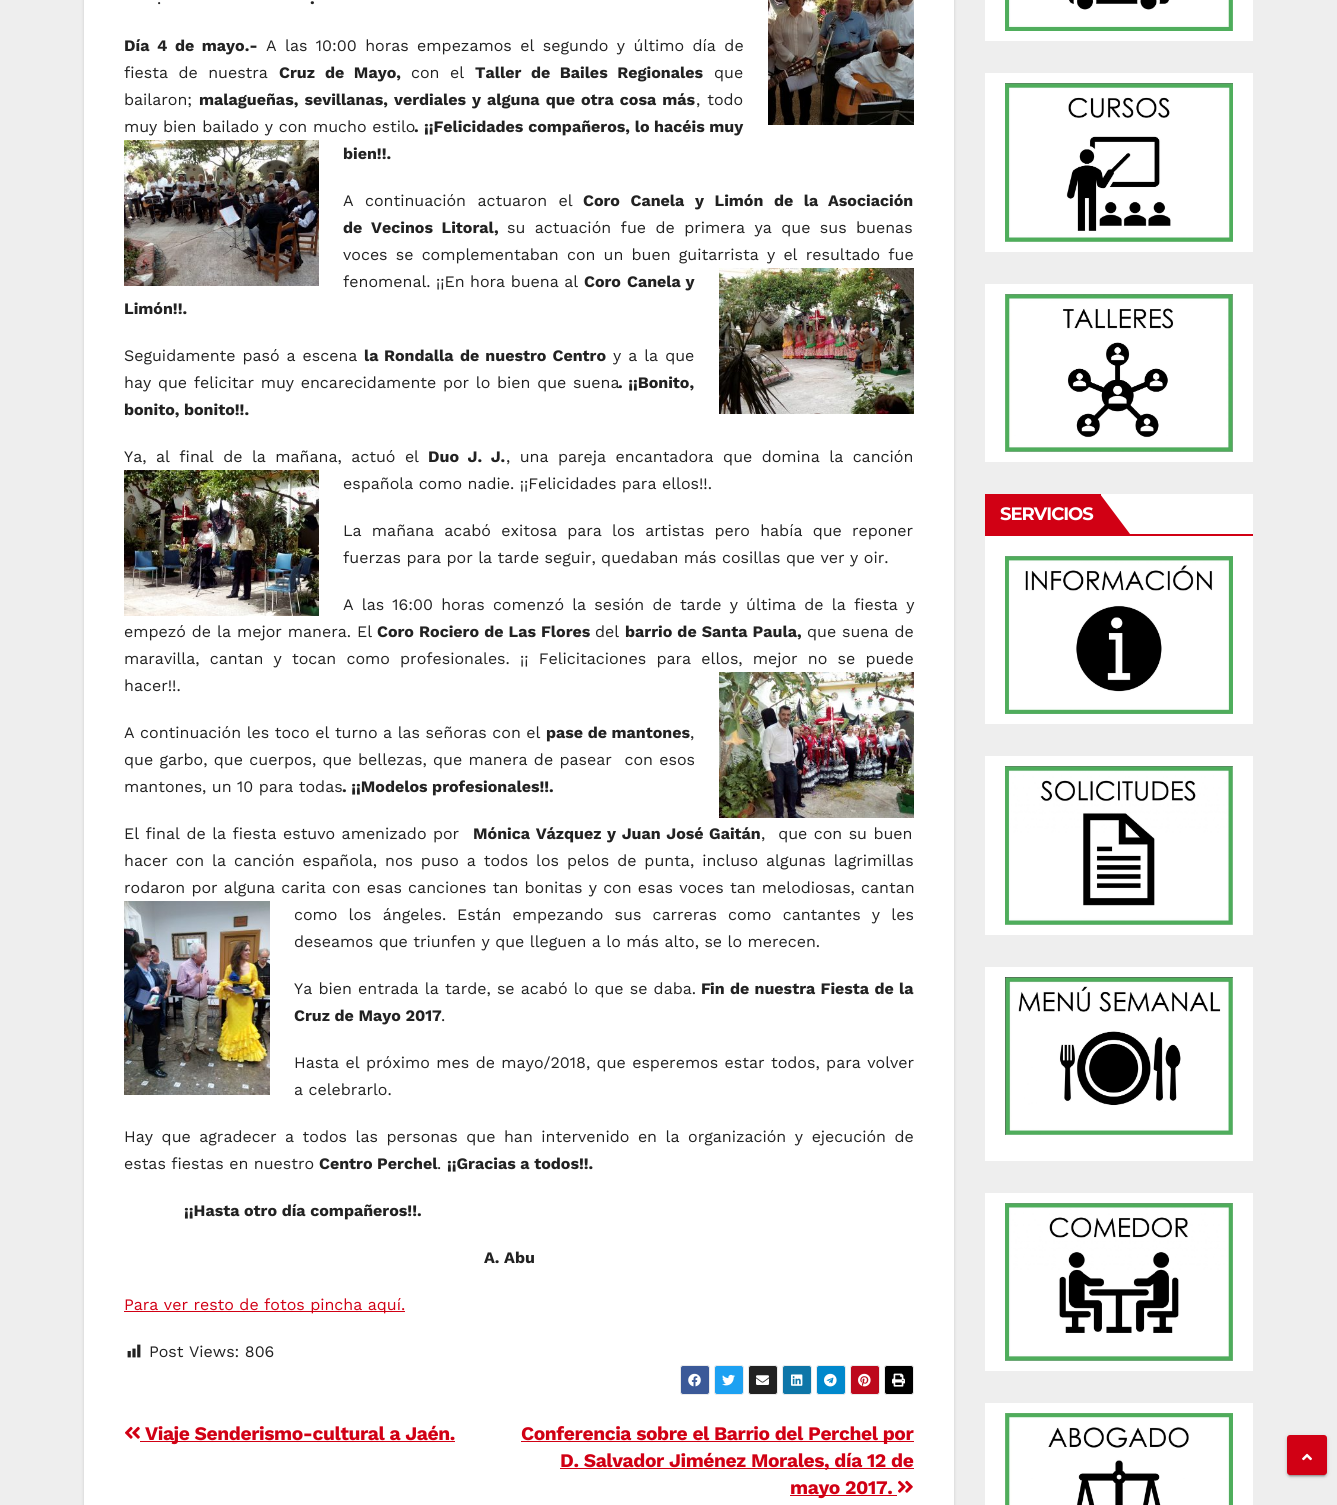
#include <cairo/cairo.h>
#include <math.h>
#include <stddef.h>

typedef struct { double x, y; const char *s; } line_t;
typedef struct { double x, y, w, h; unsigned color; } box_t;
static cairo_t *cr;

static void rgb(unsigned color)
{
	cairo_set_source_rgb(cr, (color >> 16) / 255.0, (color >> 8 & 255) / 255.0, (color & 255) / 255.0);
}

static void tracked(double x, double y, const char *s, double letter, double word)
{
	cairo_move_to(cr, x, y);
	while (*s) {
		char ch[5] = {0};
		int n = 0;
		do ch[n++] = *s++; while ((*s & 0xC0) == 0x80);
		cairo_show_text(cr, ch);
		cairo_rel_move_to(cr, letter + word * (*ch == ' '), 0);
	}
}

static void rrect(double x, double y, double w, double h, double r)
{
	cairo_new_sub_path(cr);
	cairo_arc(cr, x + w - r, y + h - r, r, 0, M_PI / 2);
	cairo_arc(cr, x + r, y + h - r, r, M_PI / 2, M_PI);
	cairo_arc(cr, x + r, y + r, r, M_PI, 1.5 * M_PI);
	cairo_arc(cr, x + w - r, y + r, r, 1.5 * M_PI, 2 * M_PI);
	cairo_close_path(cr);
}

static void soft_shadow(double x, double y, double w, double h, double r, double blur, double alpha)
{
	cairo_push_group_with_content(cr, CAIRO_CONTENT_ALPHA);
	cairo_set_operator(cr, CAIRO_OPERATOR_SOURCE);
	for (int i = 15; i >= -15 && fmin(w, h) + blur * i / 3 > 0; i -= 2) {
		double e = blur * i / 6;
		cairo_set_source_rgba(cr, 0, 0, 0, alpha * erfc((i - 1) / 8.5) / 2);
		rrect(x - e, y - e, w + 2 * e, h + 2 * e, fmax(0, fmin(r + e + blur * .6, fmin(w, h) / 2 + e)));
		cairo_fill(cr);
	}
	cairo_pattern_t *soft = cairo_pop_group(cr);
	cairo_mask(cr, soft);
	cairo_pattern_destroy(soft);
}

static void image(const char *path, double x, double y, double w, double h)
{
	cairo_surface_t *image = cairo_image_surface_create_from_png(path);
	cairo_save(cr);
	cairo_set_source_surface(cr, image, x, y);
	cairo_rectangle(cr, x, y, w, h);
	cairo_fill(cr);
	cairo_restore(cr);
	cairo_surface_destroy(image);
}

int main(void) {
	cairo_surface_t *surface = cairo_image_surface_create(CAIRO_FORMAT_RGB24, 1337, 1505);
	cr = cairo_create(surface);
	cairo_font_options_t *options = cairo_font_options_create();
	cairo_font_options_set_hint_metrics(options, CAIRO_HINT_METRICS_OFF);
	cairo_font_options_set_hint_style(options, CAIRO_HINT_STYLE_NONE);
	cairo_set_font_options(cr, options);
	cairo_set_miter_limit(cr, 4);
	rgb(0xeeeeee);
	cairo_paint(cr);
	rgb(0x000000);
	soft_shadow(84, -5, 870, 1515, 0, 1.5, 0.15);
	rgb(0xffffff);
	cairo_rectangle(cr, 84, 0, 870, 1505);
	cairo_fill(cr);
	image("img/1.png", 768, 0, 146, 125);
	image("img/2.png", 124, 140, 195, 146);
	image("img/3.png", 719, 268, 195, 146);
	image("img/4.png", 124, 470, 195, 146);
	image("img/5.png", 719, 672, 195, 146);
	image("img/6.png", 124, 901, 146, 194);
	rgb(0xd10014);
	cairo_rectangle(cr, 124, 1311, 281, 1);
	cairo_fill(cr);
	image("img/7.png", 127, 1344, 14, 14);
	rgb(0x3b5998);
	rrect(680.5, 1365.5, 29, 29, 2.5);
	cairo_fill_preserve(cr);
	rgb(0xebebeb);
	cairo_set_line_width(cr, 1);
	cairo_stroke(cr);
	image("img/8.png", 688, 1373, 13, 14);
	rgb(0x1da1f2);
	rrect(714.5, 1365.5, 29, 29, 2.5);
	cairo_fill_preserve(cr);
	rgb(0xebebeb);
	cairo_stroke(cr);
	image("img/9.png", 722, 1374, 13, 12);
	rgb(0x222222);
	rrect(748.5, 1365.5, 29, 29, 2.5);
	cairo_fill_preserve(cr);
	rgb(0xebebeb);
	cairo_stroke(cr);
	image("img/10.png", 756, 1375, 13, 10);
	rgb(0x0e76a8);
	rrect(782.5, 1365.5, 29, 29, 2.5);
	cairo_fill_preserve(cr);
	rgb(0xebebeb);
	cairo_stroke(cr);
	image("img/11.png", 791, 1374, 12, 12);
	rgb(0x0088cc);
	rrect(816.5, 1365.5, 29, 29, 2.5);
	cairo_fill_preserve(cr);
	rgb(0xebebeb);
	cairo_stroke(cr);
	image("img/12.png", 824, 1373, 13, 14);
	rgb(0xbd081c);
	rrect(850.5, 1365.5, 29, 29, 2.5);
	cairo_fill_preserve(cr);
	rgb(0xebebeb);
	cairo_stroke(cr);
	image("img/13.png", 858, 1373, 13, 14);
	rgb(0x000000);
	rrect(884.5, 1365.5, 29, 29, 2.5);
	cairo_fill_preserve(cr);
	rgb(0xebebeb);
	cairo_stroke(cr);
	image("img/14.png", 892, 1373, 13, 14);
	image("img/15.png", 125, 1426, 15, 13);
	{
		static const box_t items[] = {
			{140, 1441, 315, 1, 0xd10014},
			{521, 1441, 393, 1, 0xd10014},
			{560, 1468, 354, 1, 0xd10014},
			{790, 1495, 107, 1, 0xd10014},
		};
		for (size_t i = 0; i < sizeof items / sizeof *items; i++) {
			rgb(items[i].color);
			cairo_rectangle(cr, items[i].x, items[i].y, items[i].w, items[i].h);
			cairo_fill(cr);
		}
	}
	image("img/16.png", 898, 1480, 15, 13);
	rgb(0xffffff);
	cairo_rectangle(cr, 985, 0, 268, 41);
	cairo_fill(cr);
	image("img/17.png", 1005, 0, 228, 31);
	cairo_rectangle(cr, 985, 73, 268, 179);
	cairo_fill(cr);
	image("img/18.png", 1005, 83, 228, 159);
	cairo_rectangle(cr, 985, 284, 268, 178);
	cairo_fill(cr);
	image("img/19.png", 1005, 294, 228, 158);
	{
		static const box_t items[] = {
			{985, 494, 268, 230, 0xffffff},
			{985, 534, 268, 2, 0xd10014},
			{985, 494, 116, 40, 0xd10014},
		};
		for (size_t i = 0; i < sizeof items / sizeof *items; i++) {
			rgb(items[i].color);
			cairo_rectangle(cr, items[i].x, items[i].y, items[i].w, items[i].h);
			cairo_fill(cr);
		}
	}
	cairo_new_path(cr);
	cairo_move_to(cr, 1100, 534);
	cairo_line_to(cr, 1100, 494);
	cairo_line_to(cr, 1130, 534);
	cairo_close_path(cr);
	cairo_fill(cr);
	image("img/20.png", 1005, 556, 228, 158);
	rgb(0xffffff);
	cairo_rectangle(cr, 985, 756, 268, 179);
	cairo_fill(cr);
	image("img/21.png", 1005, 766, 228, 159);
	cairo_rectangle(cr, 985, 967, 268, 194);
	cairo_fill(cr);
	image("img/22.png", 1005, 977, 228, 158);
	cairo_rectangle(cr, 985, 1193, 268, 178);
	cairo_fill(cr);
	image("img/23.png", 1005, 1203, 228, 158);
	cairo_rectangle(cr, 985, 1403, 268, 102);
	cairo_fill(cr);
	image("img/24.png", 1005, 1413, 228, 92);
	rgb(0x000000);
	soft_shadow(1287, 1436, 40, 40, 3, 2.5, 0.12);
	soft_shadow(1289, 1440, 36, 36, 1, 0.5, 0.2);
	soft_shadow(1287, 1437, 40, 40, 3, 1, 0.14);
	rgb(0xd10014);
	rrect(1288, 1436, 38, 38, 2);
	cairo_fill_preserve(cr);
	cairo_set_line_width(cr, 2);
	cairo_stroke(cr);
	image("img/25.png", 1302, 1453, 10, 8);
	cairo_select_font_face(cr, "Work Sans", CAIRO_FONT_SLANT_NORMAL, CAIRO_FONT_WEIGHT_NORMAL);
	cairo_set_font_size(cr, 16);
	rgb(0x222222);
	cairo_move_to(cr, 157, 4);
	cairo_show_text(cr, ".");
	cairo_select_font_face(cr, "Work Sans", CAIRO_FONT_SLANT_NORMAL, CAIRO_FONT_WEIGHT_BOLD);
	cairo_move_to(cr, 310, 4);
	cairo_show_text(cr, ".");
	tracked(124, 51, "Día 4 de mayo.-", 0, 3);
	cairo_select_font_face(cr, "Work Sans", CAIRO_FONT_SLANT_NORMAL, CAIRO_FONT_WEIGHT_NORMAL);
	tracked(266, 51, "A las 10:00 horas empezamos el segundo y último día de", 0, 3);
	tracked(124, 78, "fiesta de nuestra", 0, 5);
	cairo_select_font_face(cr, "Work Sans", CAIRO_FONT_SLANT_NORMAL, CAIRO_FONT_WEIGHT_BOLD);
	cairo_move_to(cr, 279, 78);
	cairo_show_text(cr, "Cruz");
	tracked(325, 78, "de Mayo,", 0, 5);
	cairo_select_font_face(cr, "Work Sans", CAIRO_FONT_SLANT_NORMAL, CAIRO_FONT_WEIGHT_NORMAL);
	tracked(411, 78, "con el", 0, 5);
	cairo_select_font_face(cr, "Work Sans", CAIRO_FONT_SLANT_NORMAL, CAIRO_FONT_WEIGHT_BOLD);
	tracked(475, 78, "Taller de Bailes Regionales", 0, 5);
	cairo_select_font_face(cr, "Work Sans", CAIRO_FONT_SLANT_NORMAL, CAIRO_FONT_WEIGHT_NORMAL);
	cairo_move_to(cr, 714, 78);
	cairo_show_text(cr, "que");
	cairo_move_to(cr, 124, 105);
	cairo_show_text(cr, "bailaron;");
	cairo_select_font_face(cr, "Work Sans", CAIRO_FONT_SLANT_NORMAL, CAIRO_FONT_WEIGHT_BOLD);
	tracked(199, 105, "malagueñas, sevillanas, verdiales", 0, 1.5);
	tracked(472, 105, "y alguna que otra cosa más", 0, 1.5);
	cairo_select_font_face(cr, "Work Sans", CAIRO_FONT_SLANT_NORMAL, CAIRO_FONT_WEIGHT_NORMAL);
	tracked(696, 105, ", todo", 0, 1.5);
	tracked(124, 132, "muy bien bailado y con mucho estilo", 0, 0.25);
	cairo_select_font_face(cr, "Work Sans", CAIRO_FONT_SLANT_NORMAL, CAIRO_FONT_WEIGHT_BOLD);
	tracked(424, 132, "¡¡Felicidades compañeros, lo", 0, 0.25);
	{
		static const line_t items[] = {
			{654, 132, "hacéis muy"},
			{343, 159, "bien!!."},
			{414, 132, "."},
		};
		for (size_t i = 0; i < sizeof items / sizeof *items; i++) {
			cairo_move_to(cr, items[i].x, items[i].y);
			cairo_show_text(cr, items[i].s);
		}
	}
	cairo_select_font_face(cr, "Work Sans", CAIRO_FONT_SLANT_NORMAL, CAIRO_FONT_WEIGHT_NORMAL);
	tracked(343, 206, "A continuación actuaron el", 0, 6);
	cairo_select_font_face(cr, "Work Sans", CAIRO_FONT_SLANT_NORMAL, CAIRO_FONT_WEIGHT_BOLD);
	tracked(583, 206, "Coro Canela y Limón", 0, 6);
	tracked(774, 206, "de la", 0, 6);
	cairo_move_to(cr, 828, 206);
	cairo_show_text(cr, "Asociación");
	cairo_move_to(cr, 343, 233);
	cairo_show_text(cr, "de");
	tracked(371, 233, "Vecinos Litoral", 0, 4);
	cairo_move_to(cr, 494, 233);
	cairo_show_text(cr, ",");
	cairo_select_font_face(cr, "Work Sans", CAIRO_FONT_SLANT_NORMAL, CAIRO_FONT_WEIGHT_NORMAL);
	tracked(507, 233, "su actuación fue de primera ya que sus buenas", 0, 4);
	tracked(343, 260, "voces se complementaban con un buen guitarrista y el resultado fue", 0, 2.75);
	cairo_move_to(cr, 343, 287);
	cairo_show_text(cr, "fenomenal. ¡¡En hora buena al");
	cairo_select_font_face(cr, "Work Sans", CAIRO_FONT_SLANT_NORMAL, CAIRO_FONT_WEIGHT_BOLD);
	{
		static const line_t items[] = {
			{584, 287, "Coro"},
			{627, 287, "Canela y"},
			{124, 314, "Limón!!."},
		};
		for (size_t i = 0; i < sizeof items / sizeof *items; i++) {
			cairo_move_to(cr, items[i].x, items[i].y);
			cairo_show_text(cr, items[i].s);
		}
	}
	cairo_select_font_face(cr, "Work Sans", CAIRO_FONT_SLANT_NORMAL, CAIRO_FONT_WEIGHT_NORMAL);
	tracked(124, 361, "Seguidamente pasó a escena", 0, 1.5);
	cairo_select_font_face(cr, "Work Sans", CAIRO_FONT_SLANT_NORMAL, CAIRO_FONT_WEIGHT_BOLD);
	cairo_move_to(cr, 364, 361);
	cairo_show_text(cr, "la");
	cairo_move_to(cr, 384, 361);
	cairo_show_text(cr, "Rondalla");
	tracked(460, 361, "de nuestro Centro", 0, 1.5);
	cairo_select_font_face(cr, "Work Sans", CAIRO_FONT_SLANT_NORMAL, CAIRO_FONT_WEIGHT_NORMAL);
	tracked(613, 361, "y a la que", 0, 1.5);
	tracked(124, 388, "hay que felicitar muy encarecidamente por lo bien que suena", 0, 1.25);
	cairo_select_font_face(cr, "Work Sans", CAIRO_FONT_SLANT_NORMAL, CAIRO_FONT_WEIGHT_BOLD);
	tracked(618, 388, ". ¡¡Bonito,", 0, 1);
	cairo_move_to(cr, 124, 415);
	cairo_show_text(cr, "bonito, bonito!!.");
	cairo_select_font_face(cr, "Work Sans", CAIRO_FONT_SLANT_NORMAL, CAIRO_FONT_WEIGHT_NORMAL);
	tracked(124, 462, "Ya, al final de la mañana, actuó el", 0, 4);
	cairo_select_font_face(cr, "Work Sans", CAIRO_FONT_SLANT_NORMAL, CAIRO_FONT_WEIGHT_BOLD);
	tracked(428, 462, "Duo J. J.", 0, 4);
	cairo_select_font_face(cr, "Work Sans", CAIRO_FONT_SLANT_NORMAL, CAIRO_FONT_WEIGHT_NORMAL);
	tracked(506, 462, ", una pareja encantadora que domina la canción", 0, 4);
	cairo_move_to(cr, 343, 489);
	cairo_show_text(cr, "española como nadie. ¡¡Felicidades para ellos!!.");
	tracked(343, 536, "La mañana acabó exitosa para los artistas pero había que reponer", 0, 4.75);
	cairo_move_to(cr, 343, 563);
	cairo_show_text(cr, "fuerzas para por la tarde seguir, quedaban más cosillas que ver y oir.");
	tracked(343, 610, "A las 16:00 horas comenzó la sesión de tarde y última de la fiesta y", 0, 2.75);
	tracked(124, 637, "empezó de la mejor manera. El", 0, 0.5);
	cairo_select_font_face(cr, "Work Sans", CAIRO_FONT_SLANT_NORMAL, CAIRO_FONT_WEIGHT_BOLD);
	tracked(377, 637, "Coro Rociero de Las Flores", 0, 0.5);
	cairo_select_font_face(cr, "Work Sans", CAIRO_FONT_SLANT_NORMAL, CAIRO_FONT_WEIGHT_NORMAL);
	cairo_move_to(cr, 595, 637);
	cairo_show_text(cr, "del");
	cairo_select_font_face(cr, "Work Sans", CAIRO_FONT_SLANT_NORMAL, CAIRO_FONT_WEIGHT_BOLD);
	tracked(625, 637, "barrio de Santa Paula,", 0, 0.5);
	cairo_select_font_face(cr, "Work Sans", CAIRO_FONT_SLANT_NORMAL, CAIRO_FONT_WEIGHT_NORMAL);
	tracked(807, 637, "que suena de", 0, 0.5);
	tracked(124, 664, "maravilla, cantan y tocan como profesionales. ¡¡ Felicitaciones para ellos, mejor no se puede", 0, 4.75);
	cairo_move_to(cr, 124, 691);
	cairo_show_text(cr, "hacer!!.");
	tracked(124, 738, "A continuación les toco el turno a las señoras con el", 0, 0.1);
	cairo_select_font_face(cr, "Work Sans", CAIRO_FONT_SLANT_NORMAL, CAIRO_FONT_WEIGHT_BOLD);
	cairo_move_to(cr, 546, 738);
	cairo_show_text(cr, "pase de mantones");
	cairo_select_font_face(cr, "Work Sans", CAIRO_FONT_SLANT_NORMAL, CAIRO_FONT_WEIGHT_NORMAL);
	cairo_move_to(cr, 690, 738);
	cairo_show_text(cr, ",");
	tracked(124, 765, "que garbo, que cuerpos, que bellezas, que manera de pasear  con esos", 0, 0.9);
	cairo_move_to(cr, 124, 792);
	cairo_show_text(cr, "mantones, un 10 para todas");
	cairo_select_font_face(cr, "Work Sans", CAIRO_FONT_SLANT_NORMAL, CAIRO_FONT_WEIGHT_BOLD);
	cairo_move_to(cr, 342, 792);
	cairo_show_text(cr, ". ¡¡Modelos profesionales!!.");
	cairo_select_font_face(cr, "Work Sans", CAIRO_FONT_SLANT_NORMAL, CAIRO_FONT_WEIGHT_NORMAL);
	tracked(124, 839, "El final de la fiesta estuvo amenizado por", 0, 1);
	cairo_select_font_face(cr, "Work Sans", CAIRO_FONT_SLANT_NORMAL, CAIRO_FONT_WEIGHT_BOLD);
	tracked(473, 839, "Mónica Vázquez y Juan José Gaitán", 0, 1);
	cairo_select_font_face(cr, "Work Sans", CAIRO_FONT_SLANT_NORMAL, CAIRO_FONT_WEIGHT_NORMAL);
	tracked(761, 839, ",  que con su buen", 0, 1);
	tracked(124, 866, "hacer con la canción española, nos puso a todos los pelos de punta, incluso algunas lagrimillas", 0, 2.5);
	tracked(124, 893, "rodaron por alguna carita con esas canciones tan bonitas y con esas voces tan melodiosas, cantan", 0, 0.75);
	tracked(294, 920, "como los ángeles.", 0, 5.75);
	tracked(457, 920, "Están empezando sus carreras como cantantes y les", 0, 5.75);
	cairo_move_to(cr, 294, 947);
	cairo_show_text(cr, "deseamos que triunfen y que lleguen a lo más alto, se lo merecen.");
	tracked(294, 994, "Ya bien entrada la tarde, se acabó lo que se daba.", 0, 0.75);
	cairo_select_font_face(cr, "Work Sans", CAIRO_FONT_SLANT_NORMAL, CAIRO_FONT_WEIGHT_BOLD);
	cairo_move_to(cr, 701, 994);
	cairo_show_text(cr, "F");
	tracked(710, 994, "in de nuestra Fiesta de la", 0, 0.75);
	cairo_move_to(cr, 294, 1021);
	cairo_show_text(cr, "Cruz de Mayo 2017");
	cairo_select_font_face(cr, "Work Sans", CAIRO_FONT_SLANT_NORMAL, CAIRO_FONT_WEIGHT_NORMAL);
	cairo_move_to(cr, 441, 1021);
	cairo_show_text(cr, ".");
	tracked(294, 1068, "Hasta el próximo mes de mayo/2018, que esperemos estar todos, para volver", 0, 1);
	cairo_move_to(cr, 294, 1095);
	cairo_show_text(cr, "a celebrarlo.");
	tracked(124, 1142, "Hay que agradecer a todos las personas que han intervenido en la organización y ejecución de", 0, 3.1);
	cairo_move_to(cr, 124, 1169);
	cairo_show_text(cr, "estas fiestas en nuestro");
	cairo_select_font_face(cr, "Work Sans", CAIRO_FONT_SLANT_NORMAL, CAIRO_FONT_WEIGHT_BOLD);
	cairo_move_to(cr, 319, 1169);
	cairo_show_text(cr, "Centro Perchel");
	cairo_select_font_face(cr, "Work Sans", CAIRO_FONT_SLANT_NORMAL, CAIRO_FONT_WEIGHT_NORMAL);
	cairo_move_to(cr, 437, 1169);
	cairo_show_text(cr, ".");
	cairo_select_font_face(cr, "Work Sans", CAIRO_FONT_SLANT_NORMAL, CAIRO_FONT_WEIGHT_BOLD);
	{
		static const line_t items[] = {
			{447, 1169, "¡¡Gracias a todos!!."},
			{184, 1216, "¡¡Hasta otro día compañeros!!."},
			{484, 1263, "A. Abu"},
		};
		for (size_t i = 0; i < sizeof items / sizeof *items; i++) {
			cairo_move_to(cr, items[i].x, items[i].y);
			cairo_show_text(cr, items[i].s);
		}
	}
	cairo_select_font_face(cr, "Work Sans", CAIRO_FONT_SLANT_NORMAL, CAIRO_FONT_WEIGHT_NORMAL);
	rgb(0xd10014);
	cairo_move_to(cr, 124, 1310);
	cairo_show_text(cr, "Para ver resto de fotos pincha aquí.");
	rgb(0x222222);
	cairo_move_to(cr, 149, 1357);
	cairo_show_text(cr, "Post Views: 806");
	cairo_select_font_face(cr, "Work Sans", CAIRO_FONT_SLANT_NORMAL, CAIRO_FONT_WEIGHT_BOLD);
	cairo_set_font_size(cr, 19.2);
	rgb(0xd10014);
	{
		static const line_t items[] = {
			{145, 1440, "Viaje Senderismo-cultural a Jaén."},
			{521, 1440, "Conferencia sobre el Barrio del Perchel por"},
			{560, 1467, "D. Salvador Jiménez Morales, día 12 de"},
			{790, 1494, "mayo 2017."},
		};
		for (size_t i = 0; i < sizeof items / sizeof *items; i++) {
			tracked(items[i].x, items[i].y, items[i].s, -0.4, 0);
		}
	}
	cairo_select_font_face(cr, "Montserrat", CAIRO_FONT_SLANT_NORMAL, CAIRO_FONT_WEIGHT_BOLD);
	cairo_set_font_size(cr, 18);
	rgb(0xffffff);
	tracked(1000, 520, "SERVICIOS", -1, 0);
	cairo_surface_write_to_png(surface, "page.png");
	cairo_font_options_destroy(options);
	cairo_destroy(cr);
	cairo_surface_destroy(surface);
	return 0;
}
